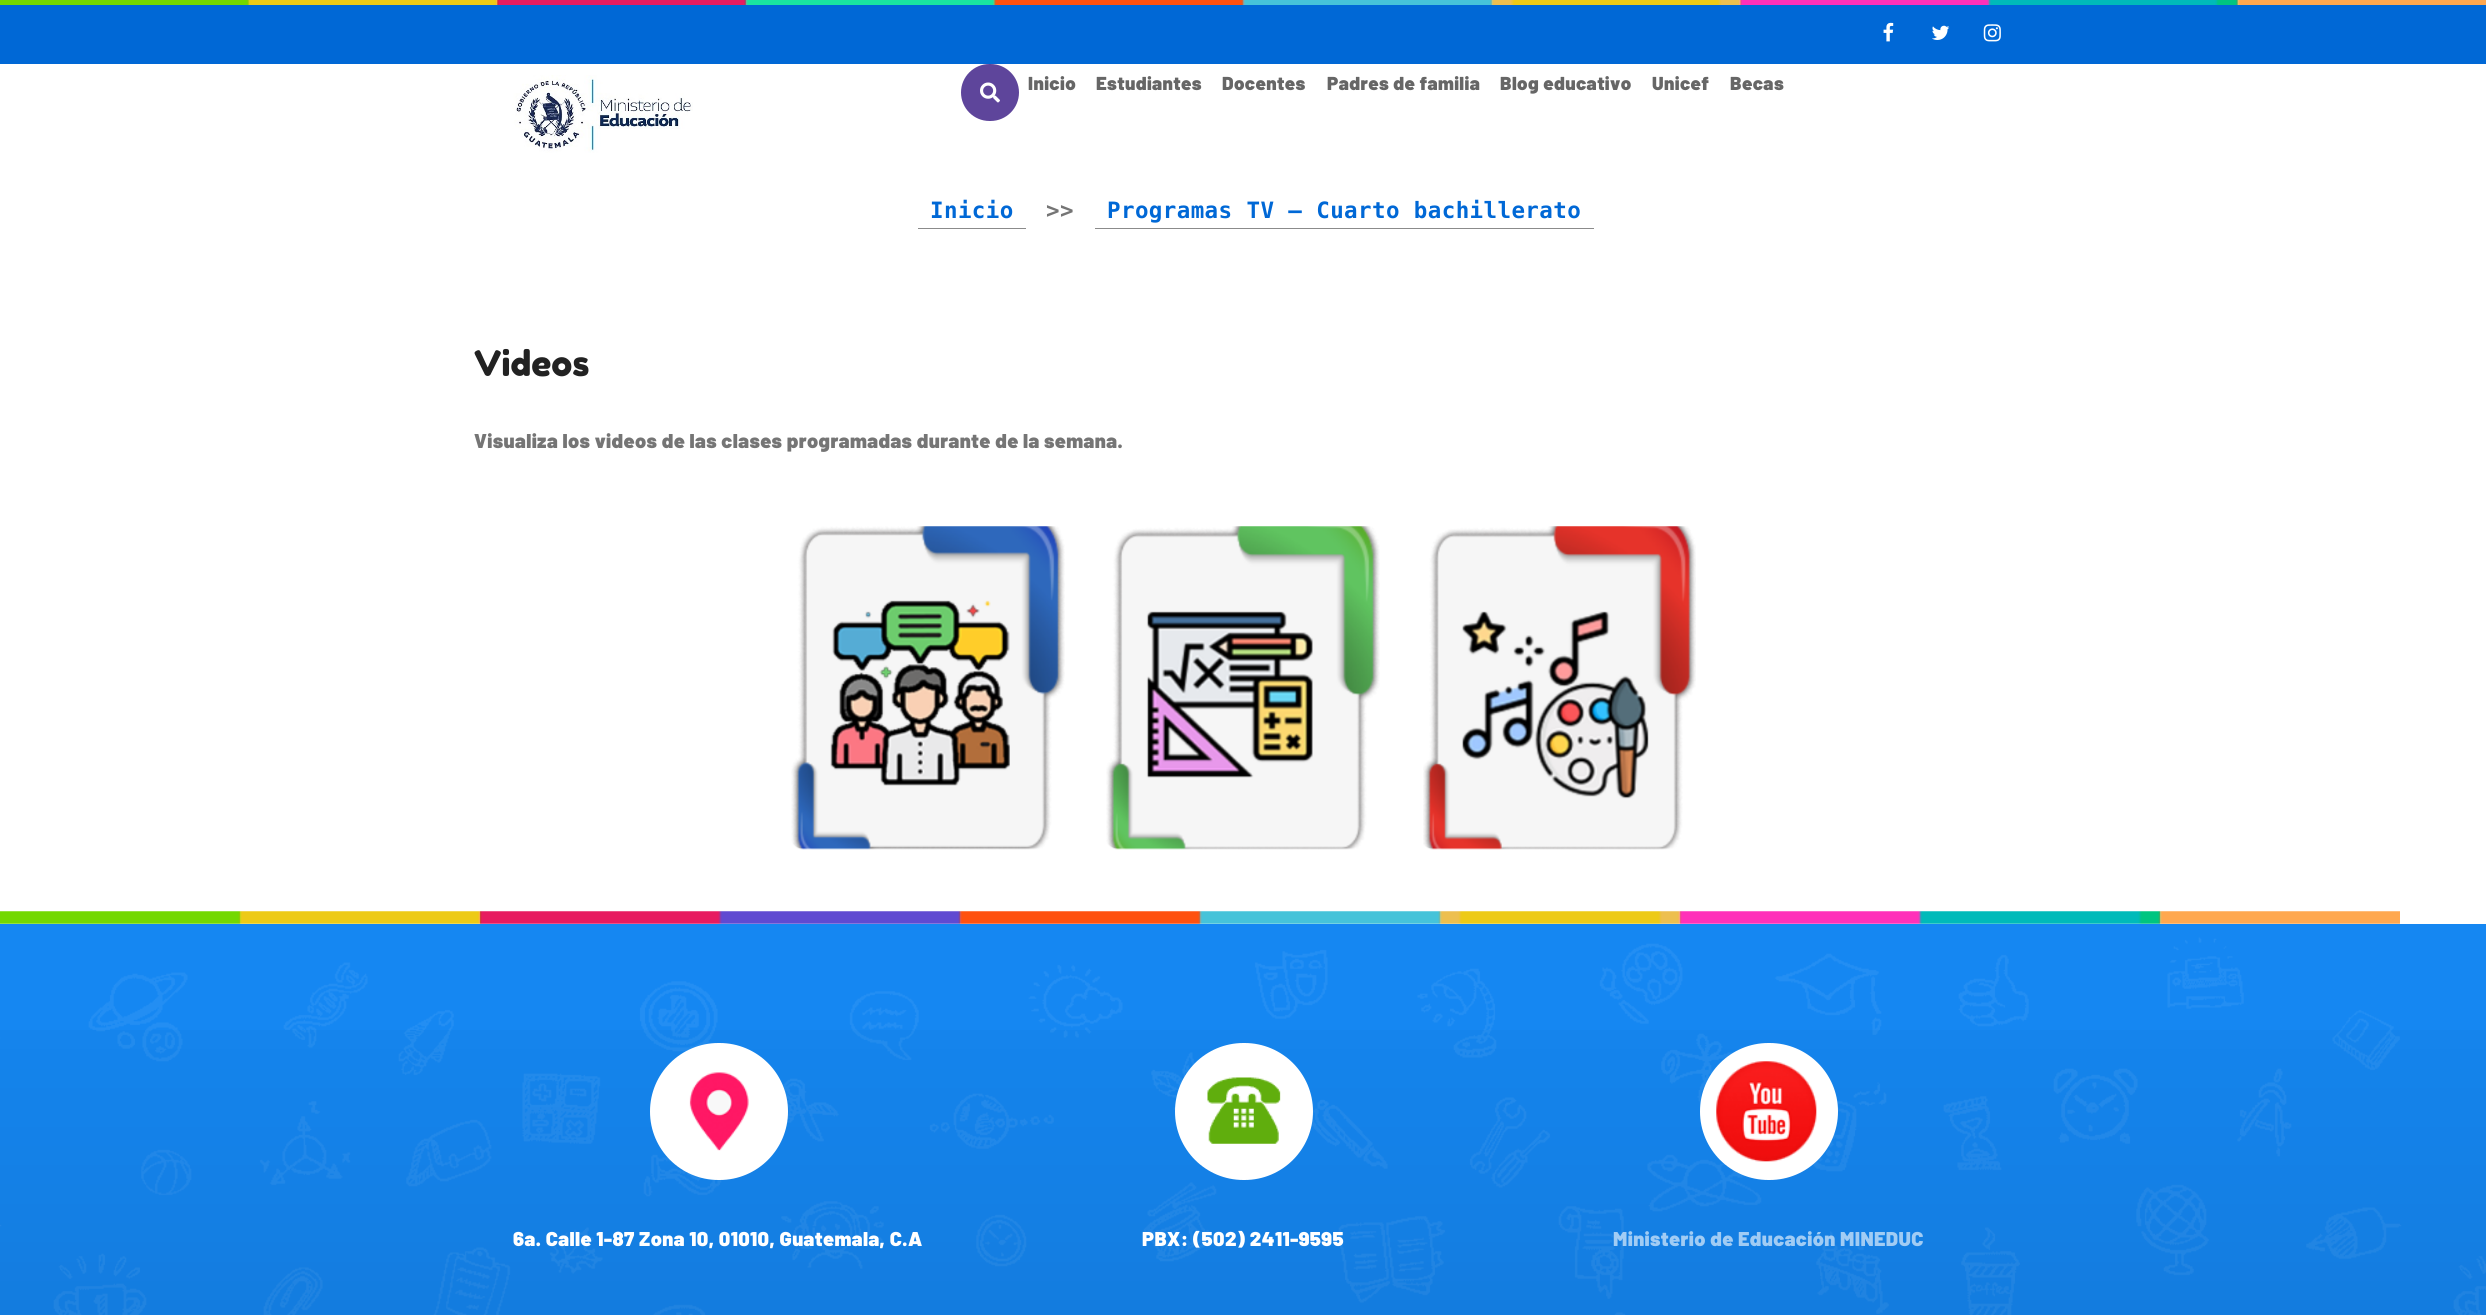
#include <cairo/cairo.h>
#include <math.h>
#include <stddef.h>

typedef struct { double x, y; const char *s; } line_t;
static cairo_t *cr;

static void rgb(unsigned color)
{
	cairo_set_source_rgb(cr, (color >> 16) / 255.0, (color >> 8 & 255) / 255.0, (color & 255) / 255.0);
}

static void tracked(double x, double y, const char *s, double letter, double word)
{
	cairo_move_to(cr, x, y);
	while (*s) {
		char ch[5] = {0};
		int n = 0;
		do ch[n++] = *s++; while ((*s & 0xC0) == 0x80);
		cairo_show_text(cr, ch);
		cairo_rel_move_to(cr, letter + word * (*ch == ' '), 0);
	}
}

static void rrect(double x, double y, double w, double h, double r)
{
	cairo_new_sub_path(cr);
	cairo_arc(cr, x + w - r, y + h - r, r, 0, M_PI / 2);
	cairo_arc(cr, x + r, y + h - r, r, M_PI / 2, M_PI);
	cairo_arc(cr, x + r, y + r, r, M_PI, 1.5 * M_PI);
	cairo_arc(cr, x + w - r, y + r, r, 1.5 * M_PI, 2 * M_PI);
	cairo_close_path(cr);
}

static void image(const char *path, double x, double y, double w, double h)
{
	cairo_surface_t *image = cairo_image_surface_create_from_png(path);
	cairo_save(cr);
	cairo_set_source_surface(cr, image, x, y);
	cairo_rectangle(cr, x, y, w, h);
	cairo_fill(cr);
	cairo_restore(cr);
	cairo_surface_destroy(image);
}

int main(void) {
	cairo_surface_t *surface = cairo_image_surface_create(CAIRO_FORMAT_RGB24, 2486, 1315);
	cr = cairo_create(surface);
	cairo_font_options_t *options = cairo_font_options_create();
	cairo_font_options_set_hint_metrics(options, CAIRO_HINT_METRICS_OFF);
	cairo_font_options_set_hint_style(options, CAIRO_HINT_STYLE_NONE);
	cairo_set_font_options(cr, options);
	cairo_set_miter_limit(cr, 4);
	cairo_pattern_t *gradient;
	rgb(0xffffff);
	cairo_paint(cr);
	rgb(0x0068d6);
	cairo_rectangle(cr, 0, 5, 2486, 59);
	cairo_fill(cr);
	image("img/1.png", 0, 0, 2486, 5);
	image("img/2.png", 1883, 22, 11, 20);
	image("img/3.png", 1932, 25, 18, 15);
	image("img/4.png", 1983, 24, 18, 18);
	image("img/5.png", 512, 75, 181, 78);
	rgb(0x5e459b);
	rrect(961, 64, 58, 57, 28.5);
	cairo_fill(cr);
	image("img/6.png", 980, 82, 20, 21);
	rgb(0x8b8b8b);
	cairo_rectangle(cr, 918, 228, 108, 1);
	cairo_fill(cr);
	cairo_rectangle(cr, 1095, 228, 499, 1);
	cairo_fill(cr);
	image("img/7.png", 791, 526, 274, 324);
	image("img/8.png", 1106, 526, 274, 324);
	image("img/9.png", 1423, 526, 273, 324);
	image("img/10.png", 0, 911, 2400, 13);
	rgb(0x1587f2);
	cairo_rectangle(cr, 0, 924, 2486, 391);
	cairo_fill(cr);
	image("img/11.png", 0, 937, 2486, 378);
	gradient = cairo_pattern_create_linear(1243, 924, 1243, 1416);
	cairo_pattern_add_color_stop_rgba(gradient, 0, 0, 0, 0, 0);
	cairo_pattern_add_color_stop_rgba(gradient, 1, 0, 0, 0, 0.1);
	cairo_set_source(cr, gradient);
	cairo_pattern_destroy(gradient);
	cairo_rectangle(cr, 0, 1030, 2486, 285);
	cairo_fill(cr);
	rgb(0xffffff);
	rrect(650, 1043, 138, 137, 68.5);
	cairo_fill(cr);
	image("img/12.png", 689, 1072, 60, 79);
	rrect(1175, 1043, 138, 137, 68.5);
	cairo_fill(cr);
	image("img/13.png", 1207, 1077, 74, 67);
	rrect(1700, 1043, 138, 137, 68.5);
	cairo_fill(cr);
	image("img/14.png", 1716, 1061, 101, 101);
	cairo_select_font_face(cr, "Barlow Black", CAIRO_FONT_SLANT_NORMAL, CAIRO_FONT_WEIGHT_NORMAL);
	cairo_set_font_size(cr, 18.75);
	rgb(0x666666);
	{
		static const line_t items[] = {
			{1028, 90, "Inicio"},
			{1096, 90, "Estudiantes"},
			{1222, 90, "Docentes"},
			{1327, 90, "Padres de familia"},
			{1500, 90, "Blog educativo"},
			{1652, 90, "Unicef"},
			{1730, 90, "Becas"},
		};
		for (size_t i = 0; i < sizeof items / sizeof *items; i++) {
			tracked(items[i].x, items[i].y, items[i].s, 0.4, 0);
		}
	}
	cairo_select_font_face(cr, "DejaVu Sans Mono", CAIRO_FONT_SLANT_NORMAL, CAIRO_FONT_WEIGHT_BOLD);
	cairo_set_font_size(cr, 22.5);
	rgb(0x0068d6);
	tracked(930, 218, "Inicio", 0.4, 0);
	rgb(0x757575);
	tracked(1046, 218, ">>", 0.4, 0);
	rgb(0x0068d6);
	tracked(1107, 218, "Programas TV – Cuarto bachillerato", 0.4, 0);
	cairo_select_font_face(cr, "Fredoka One", CAIRO_FONT_SLANT_NORMAL, CAIRO_FONT_WEIGHT_NORMAL);
	cairo_set_font_size(cr, 35);
	rgb(0x222222);
	cairo_move_to(cr, 474, 376);
	cairo_show_text(cr, "Videos");
	cairo_select_font_face(cr, "Barlow Black", CAIRO_FONT_SLANT_NORMAL, CAIRO_FONT_WEIGHT_NORMAL);
	cairo_set_font_size(cr, 20);
	rgb(0x757575);
	tracked(474, 448, "Visualiza los videos de las clases programadas durante de la semana.", 0.4, 0);
	rgb(0xffffff);
	tracked(513, 1246, "6a. Calle 1-87 Zona 10, 01010, Guatemala, C.A", 0.4, 0);
	tracked(1142, 1246, "PBX: (502) 2411-9595", 0.4, 0);
	rgb(0xa1ccf4);
	tracked(1613, 1246, "Ministerio de Educación MINEDUC", 0.4, 0);
	cairo_surface_write_to_png(surface, "page.png");
	cairo_font_options_destroy(options);
	cairo_destroy(cr);
	cairo_surface_destroy(surface);
	return 0;
}
